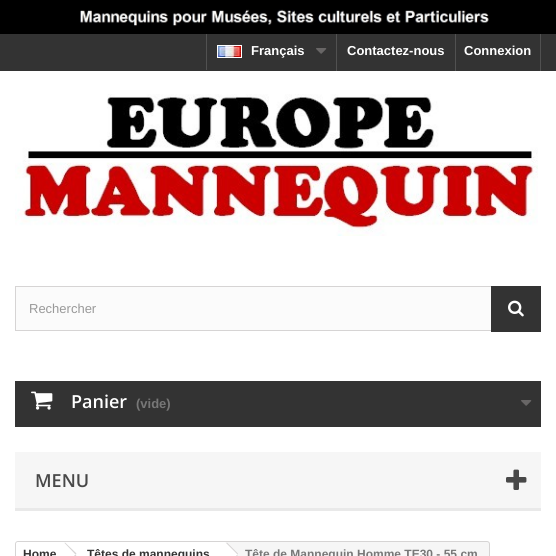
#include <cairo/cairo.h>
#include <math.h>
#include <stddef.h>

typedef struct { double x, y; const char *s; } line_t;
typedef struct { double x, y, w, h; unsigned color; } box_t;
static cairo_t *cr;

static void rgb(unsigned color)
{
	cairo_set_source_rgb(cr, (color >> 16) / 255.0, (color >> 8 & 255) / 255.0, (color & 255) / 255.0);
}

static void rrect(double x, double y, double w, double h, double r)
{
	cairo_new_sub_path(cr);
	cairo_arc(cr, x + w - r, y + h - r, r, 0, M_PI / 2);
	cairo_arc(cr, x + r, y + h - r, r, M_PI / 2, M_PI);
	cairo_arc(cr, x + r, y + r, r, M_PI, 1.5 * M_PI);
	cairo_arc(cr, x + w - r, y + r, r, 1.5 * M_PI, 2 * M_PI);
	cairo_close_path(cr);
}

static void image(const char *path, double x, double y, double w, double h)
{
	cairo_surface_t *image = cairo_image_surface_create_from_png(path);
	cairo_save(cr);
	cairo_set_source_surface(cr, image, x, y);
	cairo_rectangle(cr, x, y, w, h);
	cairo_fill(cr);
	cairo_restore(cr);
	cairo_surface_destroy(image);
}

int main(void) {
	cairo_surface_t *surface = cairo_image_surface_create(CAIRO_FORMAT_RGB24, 556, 556);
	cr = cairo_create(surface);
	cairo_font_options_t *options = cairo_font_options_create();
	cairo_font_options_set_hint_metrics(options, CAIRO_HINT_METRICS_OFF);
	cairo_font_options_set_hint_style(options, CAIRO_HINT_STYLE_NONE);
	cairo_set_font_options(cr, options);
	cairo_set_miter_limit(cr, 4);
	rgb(0xffffff);
	cairo_paint(cr);
	rgb(0x000000);
	cairo_rectangle(cr, 0, 0, 556, 34);
	cairo_fill(cr);
	image("img/1.png", 80, 9, 409, 18);
	rgb(0x333333);
	cairo_rectangle(cr, 0, 34, 556, 37);
	cairo_fill(cr);
	rgb(0x515151);
	cairo_rectangle(cr, 206, 34, 1, 36);
	cairo_fill(cr);
	cairo_rectangle(cr, 217.5, 45.5, 24, 12);
	rgb(0xffffff);
	cairo_set_line_width(cr, 1);
	cairo_stroke(cr);
	image("img/2.png", 218, 46, 23, 11);
	image("img/3.png", 316, 48, 11, 6);
	{
		static const box_t items[] = {
			{336, 34, 1, 37, 0x515151},
			{540, 34, 1, 37, 0x515151},
			{455, 34, 1, 37, 0x515151},
		};
		for (size_t i = 0; i < sizeof items / sizeof *items; i++) {
			rgb(items[i].color);
			cairo_rectangle(cr, items[i].x, items[i].y, items[i].w, items[i].h);
			cairo_fill(cr);
		}
	}
	image("img/4.png", 15, 94, 523, 142);
	rgb(0xfbfbfb);
	cairo_rectangle(cr, 16, 287, 475, 43);
	cairo_fill(cr);
	cairo_rectangle(cr, 15.5, 286.5, 525, 44);
	rgb(0xd6d4d4);
	cairo_stroke(cr);
	rgb(0x333333);
	cairo_rectangle(cr, 491, 286, 50, 46);
	cairo_fill(cr);
	image("img/5.png", 508, 300, 16, 17);
	cairo_rectangle(cr, 15, 381, 526, 46);
	cairo_fill(cr);
	image("img/6.png", 31, 391, 22, 19);
	image("img/3.png", 521, 400, 11, 6);
	rgb(0xf6f6f6);
	cairo_rectangle(cr, 15, 452, 526, 56);
	cairo_fill(cr);
	rgb(0xe9e9e9);
	cairo_rectangle(cr, 15, 508, 526, 3);
	cairo_fill(cr);
	image("img/7.png", 506, 469, 21, 21);
	rgb(0xf6f6f6);
	rrect(15.5, 541.5, 474, 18, 2.5);
	cairo_fill_preserve(cr);
	rgb(0xd6d4d4);
	cairo_stroke(cr);
	rgb(0xffffff);
	cairo_new_path(cr);
	cairo_move_to(cr, 18, 542);
	cairo_line_to(cr, 71, 542);
	cairo_line_to(cr, 71, 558);
	cairo_line_to(cr, 18, 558);
	cairo_curve_to(cr, 17, 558, 16, 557, 16, 556);
	cairo_line_to(cr, 16, 544);
	cairo_curve_to(cr, 16, 543, 17, 542, 18, 542);
	cairo_close_path(cr);
	cairo_fill(cr);
	cairo_new_path(cr);
	cairo_move_to(cr, 74, 543);
	cairo_line_to(cr, 83.5, 553);
	cairo_curve_to(cr, 84.5, 553.5, 84.5, 555, 83.5, 555.5);
	cairo_line_to(cr, 74, 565.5);
	cairo_line_to(cr, 73.5, 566);
	cairo_line_to(cr, 71.5, 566);
	cairo_line_to(cr, 60.5, 555.5);
	cairo_line_to(cr, 60, 554);
	cairo_curve_to(cr, 60, 553, 63.5, 550.5, 64.5, 549.5);
	cairo_line_to(cr, 69.5, 544.5);
	cairo_curve_to(cr, 70.5, 543.5, 72, 541, 74, 543);
	cairo_close_path(cr);
	cairo_fill(cr);
	cairo_rectangle(cr, 71, 542, 154, 14);
	cairo_fill(cr);
	rgb(0xd6d4d4);
	cairo_new_path(cr);
	cairo_move_to(cr, 65, 542.5);
	cairo_line_to(cr, 76.5, 553.5);
	cairo_line_to(cr, 75.5, 554.5);
	cairo_line_to(cr, 64.5, 543);
	cairo_close_path(cr);
	cairo_fill(cr);
	cairo_new_path(cr);
	cairo_move_to(cr, 75.5, 554.5);
	cairo_line_to(cr, 76.5, 555);
	cairo_line_to(cr, 65, 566.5);
	cairo_line_to(cr, 64.5, 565.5);
	cairo_close_path(cr);
	cairo_fill(cr);
	rgb(0xffffff);
	cairo_new_path(cr);
	cairo_move_to(cr, 227.5, 543);
	cairo_line_to(cr, 237.5, 553);
	cairo_curve_to(cr, 238, 553.5, 238, 555, 237.5, 555.5);
	cairo_line_to(cr, 227.5, 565.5);
	cairo_curve_to(cr, 226.5, 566.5, 225.5, 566.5, 224.5, 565.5);
	cairo_line_to(cr, 214.5, 555.5);
	cairo_curve_to(cr, 214, 555, 214, 553.5, 214.5, 553);
	cairo_line_to(cr, 224.5, 543);
	cairo_curve_to(cr, 225.5, 542, 226.5, 542, 227.5, 543);
	cairo_close_path(cr);
	cairo_fill(cr);
	rgb(0xd6d4d4);
	cairo_new_path(cr);
	cairo_move_to(cr, 227, 542.5);
	cairo_line_to(cr, 238, 553.5);
	cairo_line_to(cr, 237.5, 554.5);
	cairo_line_to(cr, 226, 543);
	cairo_close_path(cr);
	cairo_fill(cr);
	cairo_new_path(cr);
	cairo_move_to(cr, 237.5, 554.5);
	cairo_line_to(cr, 238, 555);
	cairo_line_to(cr, 227, 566.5);
	cairo_line_to(cr, 226, 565.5);
	cairo_close_path(cr);
	cairo_fill(cr);
	cairo_select_font_face(cr, "Liberation Sans", CAIRO_FONT_SLANT_NORMAL, CAIRO_FONT_WEIGHT_BOLD);
	cairo_set_font_size(cr, 13);
	rgb(0xffffff);
	{
		static const line_t items[] = {
			{251, 55, "Français"},
			{347, 55, "Contactez-nous"},
			{464, 55, "Connexion"},
		};
		for (size_t i = 0; i < sizeof items / sizeof *items; i++) {
			cairo_move_to(cr, items[i].x, items[i].y);
			cairo_show_text(cr, items[i].s);
		}
	}
	cairo_select_font_face(cr, "Liberation Sans", CAIRO_FONT_SLANT_NORMAL, CAIRO_FONT_WEIGHT_NORMAL);
	rgb(0x999999);
	cairo_move_to(cr, 29, 313);
	cairo_show_text(cr, "Rechercher");
	cairo_select_font_face(cr, "Open Sans SemiBold", CAIRO_FONT_SLANT_NORMAL, CAIRO_FONT_WEIGHT_NORMAL);
	cairo_set_font_size(cr, 18);
	rgb(0xffffff);
	cairo_move_to(cr, 71, 408);
	cairo_show_text(cr, "Panier");
	cairo_select_font_face(cr, "Liberation Sans", CAIRO_FONT_SLANT_NORMAL, CAIRO_FONT_WEIGHT_BOLD);
	cairo_set_font_size(cr, 13);
	rgb(0x777777);
	cairo_move_to(cr, 136, 408);
	cairo_show_text(cr, "(vide)");
	cairo_select_font_face(cr, "Open Sans SemiBold", CAIRO_FONT_SLANT_NORMAL, CAIRO_FONT_WEIGHT_NORMAL);
	cairo_set_font_size(cr, 18);
	rgb(0x484848);
	cairo_move_to(cr, 35, 487);
	cairo_show_text(cr, "MENU");
	cairo_select_font_face(cr, "Liberation Sans", CAIRO_FONT_SLANT_NORMAL, CAIRO_FONT_WEIGHT_BOLD);
	cairo_set_font_size(cr, 12);
	rgb(0x333333);
	cairo_move_to(cr, 23, 558);
	cairo_show_text(cr, "Home");
	cairo_move_to(cr, 87, 558);
	cairo_show_text(cr, "Têtes de mannequins");
	rgb(0x777777);
	cairo_move_to(cr, 245, 558);
	cairo_show_text(cr, "Tête de Mannequin Homme TE30 - 55 cm");
	cairo_surface_write_to_png(surface, "page.png");
	cairo_font_options_destroy(options);
	cairo_destroy(cr);
	cairo_surface_destroy(surface);
	return 0;
}
